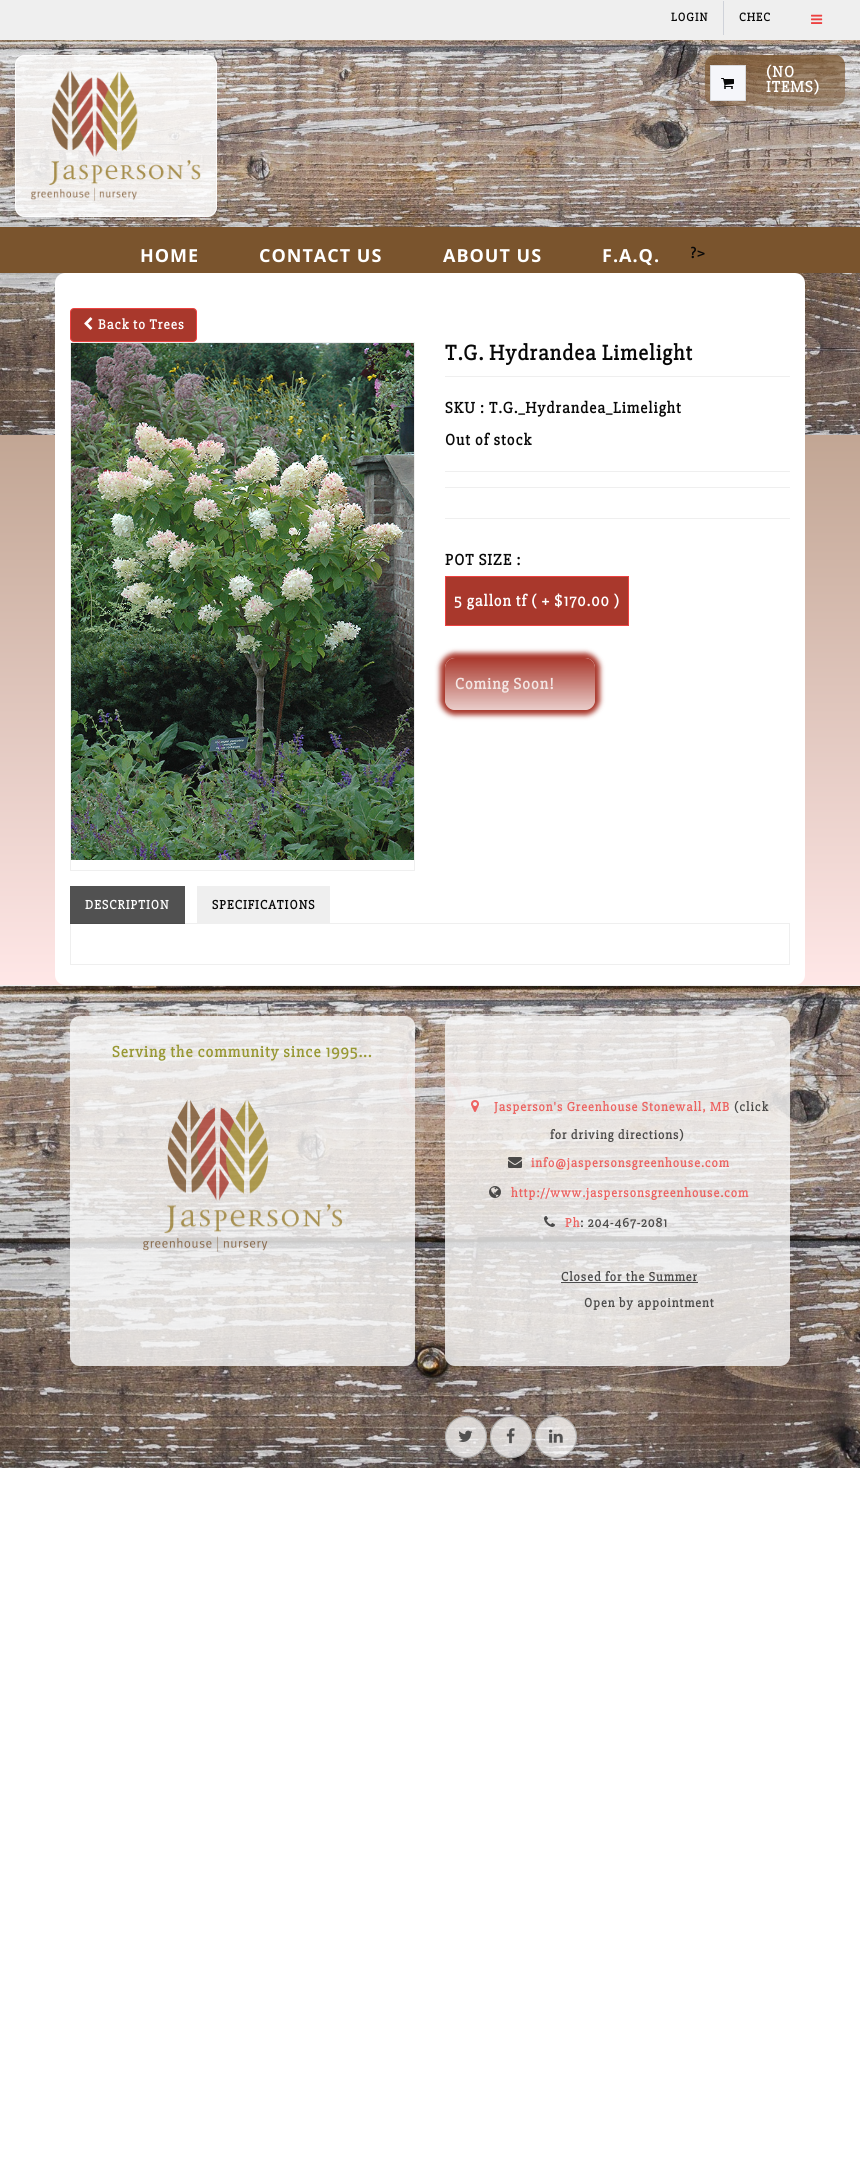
#include <cairo/cairo.h>
#include <math.h>
#include <stddef.h>

typedef struct { double x, y; const char *s; } line_t;
typedef struct { double x, y, w, h; unsigned color; } box_t;
static cairo_t *cr;

static void rgb(unsigned color)
{
	cairo_set_source_rgb(cr, (color >> 16) / 255.0, (color >> 8 & 255) / 255.0, (color & 255) / 255.0);
}

static void tracked(double x, double y, const char *s, double letter, double word)
{
	cairo_move_to(cr, x, y);
	while (*s) {
		char ch[5] = {0};
		int n = 0;
		do ch[n++] = *s++; while ((*s & 0xC0) == 0x80);
		cairo_show_text(cr, ch);
		cairo_rel_move_to(cr, letter + word * (*ch == ' '), 0);
	}
}

static void rrect(double x, double y, double w, double h, double r)
{
	cairo_new_sub_path(cr);
	cairo_arc(cr, x + w - r, y + h - r, r, 0, M_PI / 2);
	cairo_arc(cr, x + r, y + h - r, r, M_PI / 2, M_PI);
	cairo_arc(cr, x + r, y + r, r, M_PI, 1.5 * M_PI);
	cairo_arc(cr, x + w - r, y + r, r, 1.5 * M_PI, 2 * M_PI);
	cairo_close_path(cr);
}

static void soft_shadow(double x, double y, double w, double h, double r, double blur, double alpha)
{
	cairo_push_group_with_content(cr, CAIRO_CONTENT_ALPHA);
	cairo_set_operator(cr, CAIRO_OPERATOR_SOURCE);
	for (int i = 15; i >= -15 && fmin(w, h) + blur * i / 3 > 0; i -= 2) {
		double e = blur * i / 6;
		cairo_set_source_rgba(cr, 0, 0, 0, alpha * erfc((i - 1) / 8.5) / 2);
		rrect(x - e, y - e, w + 2 * e, h + 2 * e, fmax(0, fmin(r + e + blur * .6, fmin(w, h) / 2 + e)));
		cairo_fill(cr);
	}
	cairo_pattern_t *soft = cairo_pop_group(cr);
	cairo_mask(cr, soft);
	cairo_pattern_destroy(soft);
}

static void image(const char *path, double x, double y, double w, double h)
{
	cairo_surface_t *image = cairo_image_surface_create_from_png(path);
	cairo_save(cr);
	cairo_set_source_surface(cr, image, x, y);
	cairo_rectangle(cr, x, y, w, h);
	cairo_fill(cr);
	cairo_restore(cr);
	cairo_surface_destroy(image);
}

int main(void) {
	cairo_surface_t *surface = cairo_image_surface_create(CAIRO_FORMAT_RGB24, 860, 2183);
	cr = cairo_create(surface);
	cairo_font_options_t *options = cairo_font_options_create();
	cairo_font_options_set_hint_metrics(options, CAIRO_HINT_METRICS_OFF);
	cairo_font_options_set_hint_style(options, CAIRO_HINT_STYLE_NONE);
	cairo_set_font_options(cr, options);
	cairo_set_miter_limit(cr, 4);
	cairo_pattern_t *gradient;
	rgb(0xffffff);
	cairo_paint(cr);
	gradient = cairo_pattern_create_linear(430, 35, 430, 985);
	cairo_pattern_add_color_stop_rgba(gradient, 0, 0.584, 0.463, 0.341, 1);
	cairo_pattern_add_color_stop_rgba(gradient, 1, 1, 0.906, 0.906, 1);
	cairo_set_source(cr, gradient);
	cairo_pattern_destroy(gradient);
	cairo_rectangle(cr, 0, 435, 860, 550);
	cairo_fill(cr);
	rgb(0xefefef);
	cairo_rectangle(cr, 0, 0, 860, 40);
	cairo_fill(cr);
	rgb(0xcfd2d9);
	cairo_rectangle(cr, 723, 1, 1, 34);
	cairo_fill(cr);
	image("img/1.png", 0, 40, 860, 395);
	cairo_set_source_rgba(cr, 1, 1, 1, 0.85);
	rrect(15, 55, 202, 162, 10);
	cairo_fill(cr);
	rrect(15.5, 55.5, 201, 161, 9.5);
	cairo_set_line_width(cr, 1);
	cairo_stroke(cr);
	image("img/2.png", 31, 71, 170, 130);
	rgb(0xf5f6fa);
	cairo_rectangle(cr, 710.5, 65.5, 35, 35);
	cairo_fill_preserve(cr);
	rgb(0xd9dadd);
	cairo_stroke(cr);
	image("img/3.png", 721, 78, 13, 11);
	rgb(0x7a542d);
	cairo_rectangle(cr, 0, 227, 860, 46);
	cairo_fill(cr);
	image("img/4.png", 811, 14, 12, 10);
	rgb(0xffffff);
	rrect(55, 273, 750, 712, 10);
	cairo_fill(cr);
	rgb(0xa9382c);
	rrect(70.5, 308.5, 126, 33, 3.5);
	cairo_fill_preserve(cr);
	rgb(0xed4140);
	cairo_stroke(cr);
	image("img/5.png", 84, 317, 9, 13);
	cairo_rectangle(cr, 70.5, 342.5, 344, 528);
	rgb(0xefefef);
	cairo_stroke(cr);
	image("img/6.png", 71, 343, 343, 517);
	{
		static const box_t items[] = {
			{445, 376, 345, 1, 0xefefef},
			{445, 518, 345, 1, 0xefefef},
			{445, 471, 345, 1, 0xefefef},
			{445, 487, 345, 1, 0xefefef},
		};
		for (size_t i = 0; i < sizeof items / sizeof *items; i++) {
			rgb(items[i].color);
			cairo_rectangle(cr, items[i].x, items[i].y, items[i].w, items[i].h);
			cairo_fill(cr);
		}
	}
	rgb(0xa9382c);
	cairo_rectangle(cr, 445.5, 576.5, 183, 49);
	cairo_fill_preserve(cr);
	rgb(0xed4140);
	cairo_stroke(cr);
	cairo_save(cr);
	cairo_set_fill_rule(cr, CAIRO_FILL_RULE_EVEN_ODD);
	cairo_new_path(cr);
	cairo_move_to(cr, 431, 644);
	cairo_line_to(cr, 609, 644);
	cairo_line_to(cr, 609, 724);
	cairo_line_to(cr, 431, 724);
	cairo_close_path(cr);
	cairo_move_to(cr, 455, 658);
	cairo_line_to(cr, 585, 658);
	cairo_curve_to(cr, 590.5, 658, 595, 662.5, 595, 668);
	cairo_line_to(cr, 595, 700);
	cairo_curve_to(cr, 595, 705.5, 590.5, 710, 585, 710);
	cairo_line_to(cr, 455, 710);
	cairo_curve_to(cr, 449.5, 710, 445, 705.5, 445, 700);
	cairo_line_to(cr, 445, 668);
	cairo_curve_to(cr, 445, 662.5, 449.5, 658, 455, 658);
	cairo_close_path(cr);
	cairo_clip(cr);
	rgb(0xa9382c);
	soft_shadow(440, 653, 160, 62, 15, 2.5, 1);
	cairo_restore(cr);
	gradient = cairo_pattern_create_linear(520, 658, 520, 710);
	cairo_pattern_add_color_stop_rgba(gradient, 0, 0.663, 0.22, 0.173, 1);
	cairo_pattern_add_color_stop_rgba(gradient, 1, 0.663, 0.22, 0.173, 0.25);
	cairo_set_source(cr, gradient);
	cairo_pattern_destroy(gradient);
	rrect(445, 658, 150, 52, 10);
	cairo_fill(cr);
	cairo_rectangle(cr, 70.5, 923.5, 719, 41);
	rgb(0xefefef);
	cairo_stroke(cr);
	cairo_set_source_rgba(cr, 0.031, 0.031, 0.031, 0.7);
	cairo_rectangle(cr, 70, 886, 115, 38);
	cairo_fill(cr);
	rgb(0xefefef);
	cairo_rectangle(cr, 197, 886, 133, 37);
	cairo_fill(cr);
	image("img/7.png", 0, 986, 860, 482);
	cairo_rectangle(cr, 0, 985, 860, 1);
	cairo_fill(cr);
	cairo_set_source_rgba(cr, 0.973, 0.973, 0.973, 0.8);
	rrect(70, 1016, 345, 350, 10);
	cairo_fill(cr);
	image("img/8.png", 143, 1100, 200, 152);
	rrect(445, 1016, 345, 350, 10);
	cairo_fill(cr);
	image("img/9.png", 471, 1100, 8, 12);
	image("img/10.png", 508, 1157, 14, 11);
	image("img/11.png", 489, 1186, 12, 12);
	image("img/12.png", 544, 1216, 11, 11);
	cairo_set_source_rgba(cr, 0.137, 0.137, 0.137, 0.8);
	cairo_rectangle(cr, 561, 1282, 44, 1);
	cairo_fill(cr);
	cairo_rectangle(cr, 605, 1282, 93, 1);
	cairo_fill(cr);
	cairo_set_source_rgba(cr, 1, 1, 1, 0.75);
	cairo_arc(cr, 466, 1437, 21, 0, 2 * M_PI);
	cairo_fill(cr);
	cairo_arc(cr, 466, 1437, 20.5, 0, 2 * M_PI);
	cairo_set_source_rgba(cr, 0.612, 0.612, 0.612, 0.75);
	cairo_stroke(cr);
	image("img/13.png", 458, 1430, 15, 12);
	cairo_set_source_rgba(cr, 1, 1, 1, 0.75);
	cairo_arc(cr, 511, 1437, 21, 0, 2 * M_PI);
	cairo_fill(cr);
	cairo_arc(cr, 511, 1437, 20.5, 0, 2 * M_PI);
	cairo_set_source_rgba(cr, 0.612, 0.612, 0.612, 0.75);
	cairo_stroke(cr);
	image("img/14.png", 506, 1428, 9, 16);
	cairo_set_source_rgba(cr, 1, 1, 1, 0.75);
	cairo_arc(cr, 556, 1437, 21, 0, 2 * M_PI);
	cairo_fill(cr);
	cairo_arc(cr, 556, 1437, 20.5, 0, 2 * M_PI);
	cairo_set_source_rgba(cr, 0.612, 0.612, 0.612, 0.75);
	cairo_stroke(cr);
	image("img/15.png", 549, 1429, 14, 14);
	image("img/16.png", 399, 1062, 62, 58);
	cairo_select_font_face(cr, "Slabo 27px", CAIRO_FONT_SLANT_NORMAL, CAIRO_FONT_WEIGHT_BOLD);
	cairo_set_font_size(cr, 12);
	rgb(0x080808);
	tracked(671, 21, "LOGIN", 1, 0);
	tracked(739, 21, "CHEC", 1, 0);
	cairo_set_font_size(cr, 16);
	rgb(0xffffff);
	tracked(766, 77, "(NO", 1, 0);
	tracked(766, 92, "ITEMS)", 1, 0);
	cairo_select_font_face(cr, "Open Sans", CAIRO_FONT_SLANT_NORMAL, CAIRO_FONT_WEIGHT_BOLD);
	cairo_set_font_size(cr, 18);
	{
		static const line_t items[] = {
			{140, 262, "HOME"},
			{259, 262, "CONTACT US"},
			{443, 262, "ABOUT US"},
			{602, 262, "F.A.Q."},
		};
		for (size_t i = 0; i < sizeof items / sizeof *items; i++) {
			tracked(items[i].x, items[i].y, items[i].s, 1, 0);
		}
	}
	cairo_select_font_face(cr, "Slabo 27px", CAIRO_FONT_SLANT_NORMAL, CAIRO_FONT_WEIGHT_BOLD);
	cairo_set_font_size(cr, 16);
	rgb(0x080808);
	tracked(690, 258, "?>", 1, 0);
	cairo_set_font_size(cr, 14);
	rgb(0xffffff);
	tracked(98, 329, "Back to Trees", 1, 0);
	cairo_set_font_size(cr, 22);
	rgb(0x080808);
	tracked(445, 360, "T.G. Hydrandea Limelight", 1, 0);
	cairo_set_font_size(cr, 16);
	{
		static const line_t items[] = {
			{445, 413, "SKU : T.G._Hydrandea_Limelight"},
			{445, 445, "Out of stock"},
			{445, 565, "POT SIZE :"},
		};
		for (size_t i = 0; i < sizeof items / sizeof *items; i++) {
			tracked(items[i].x, items[i].y, items[i].s, 1, 0);
		}
	}
	rgb(0xffffff);
	tracked(454, 606, "5 gallon tf ( + $170.00 )", 1, 0);
	rgb(0xf4e7e5);
	tracked(455, 689, "Coming Soon!", 1, 0);
	cairo_set_font_size(cr, 13);
	rgb(0xffffff);
	tracked(85, 909, "DESCRIPTION", 1, 0);
	rgb(0x080808);
	tracked(212, 909, "SPECIFICATIONS", 1, 0);
	cairo_set_font_size(cr, 16);
	rgb(0x989834);
	tracked(112, 1057, "Serving the community since 1995...", 1, 0);
	cairo_set_font_size(cr, 13);
	rgb(0xec6260);
	tracked(494, 1111, "Jasperson's Greenhouse Stonewall, MB", 1, 0);
	rgb(0x4b4a49);
	tracked(734, 1111, "(click", 1, 0);
	tracked(550, 1139, "for driving directions)", 1, 0);
	rgb(0xec6260);
	{
		static const line_t items[] = {
			{531, 1167, "info@jaspersonsgreenhouse.com"},
			{511, 1197, "http://www.jaspersonsgreenhouse.com"},
			{565, 1227, "Ph"},
		};
		for (size_t i = 0; i < sizeof items / sizeof *items; i++) {
			tracked(items[i].x, items[i].y, items[i].s, 1, 0);
		}
	}
	rgb(0x4b4a49);
	{
		static const line_t items[] = {
			{580, 1227, ": 204-467-2081"},
			{561, 1281, "Closed"},
			{605, 1281, "for the Summer"},
			{584, 1307, "Open by appointment"},
		};
		for (size_t i = 0; i < sizeof items / sizeof *items; i++) {
			tracked(items[i].x, items[i].y, items[i].s, 1, 0);
		}
	}
	cairo_surface_write_to_png(surface, "page.png");
	cairo_font_options_destroy(options);
	cairo_destroy(cr);
	cairo_surface_destroy(surface);
	return 0;
}
